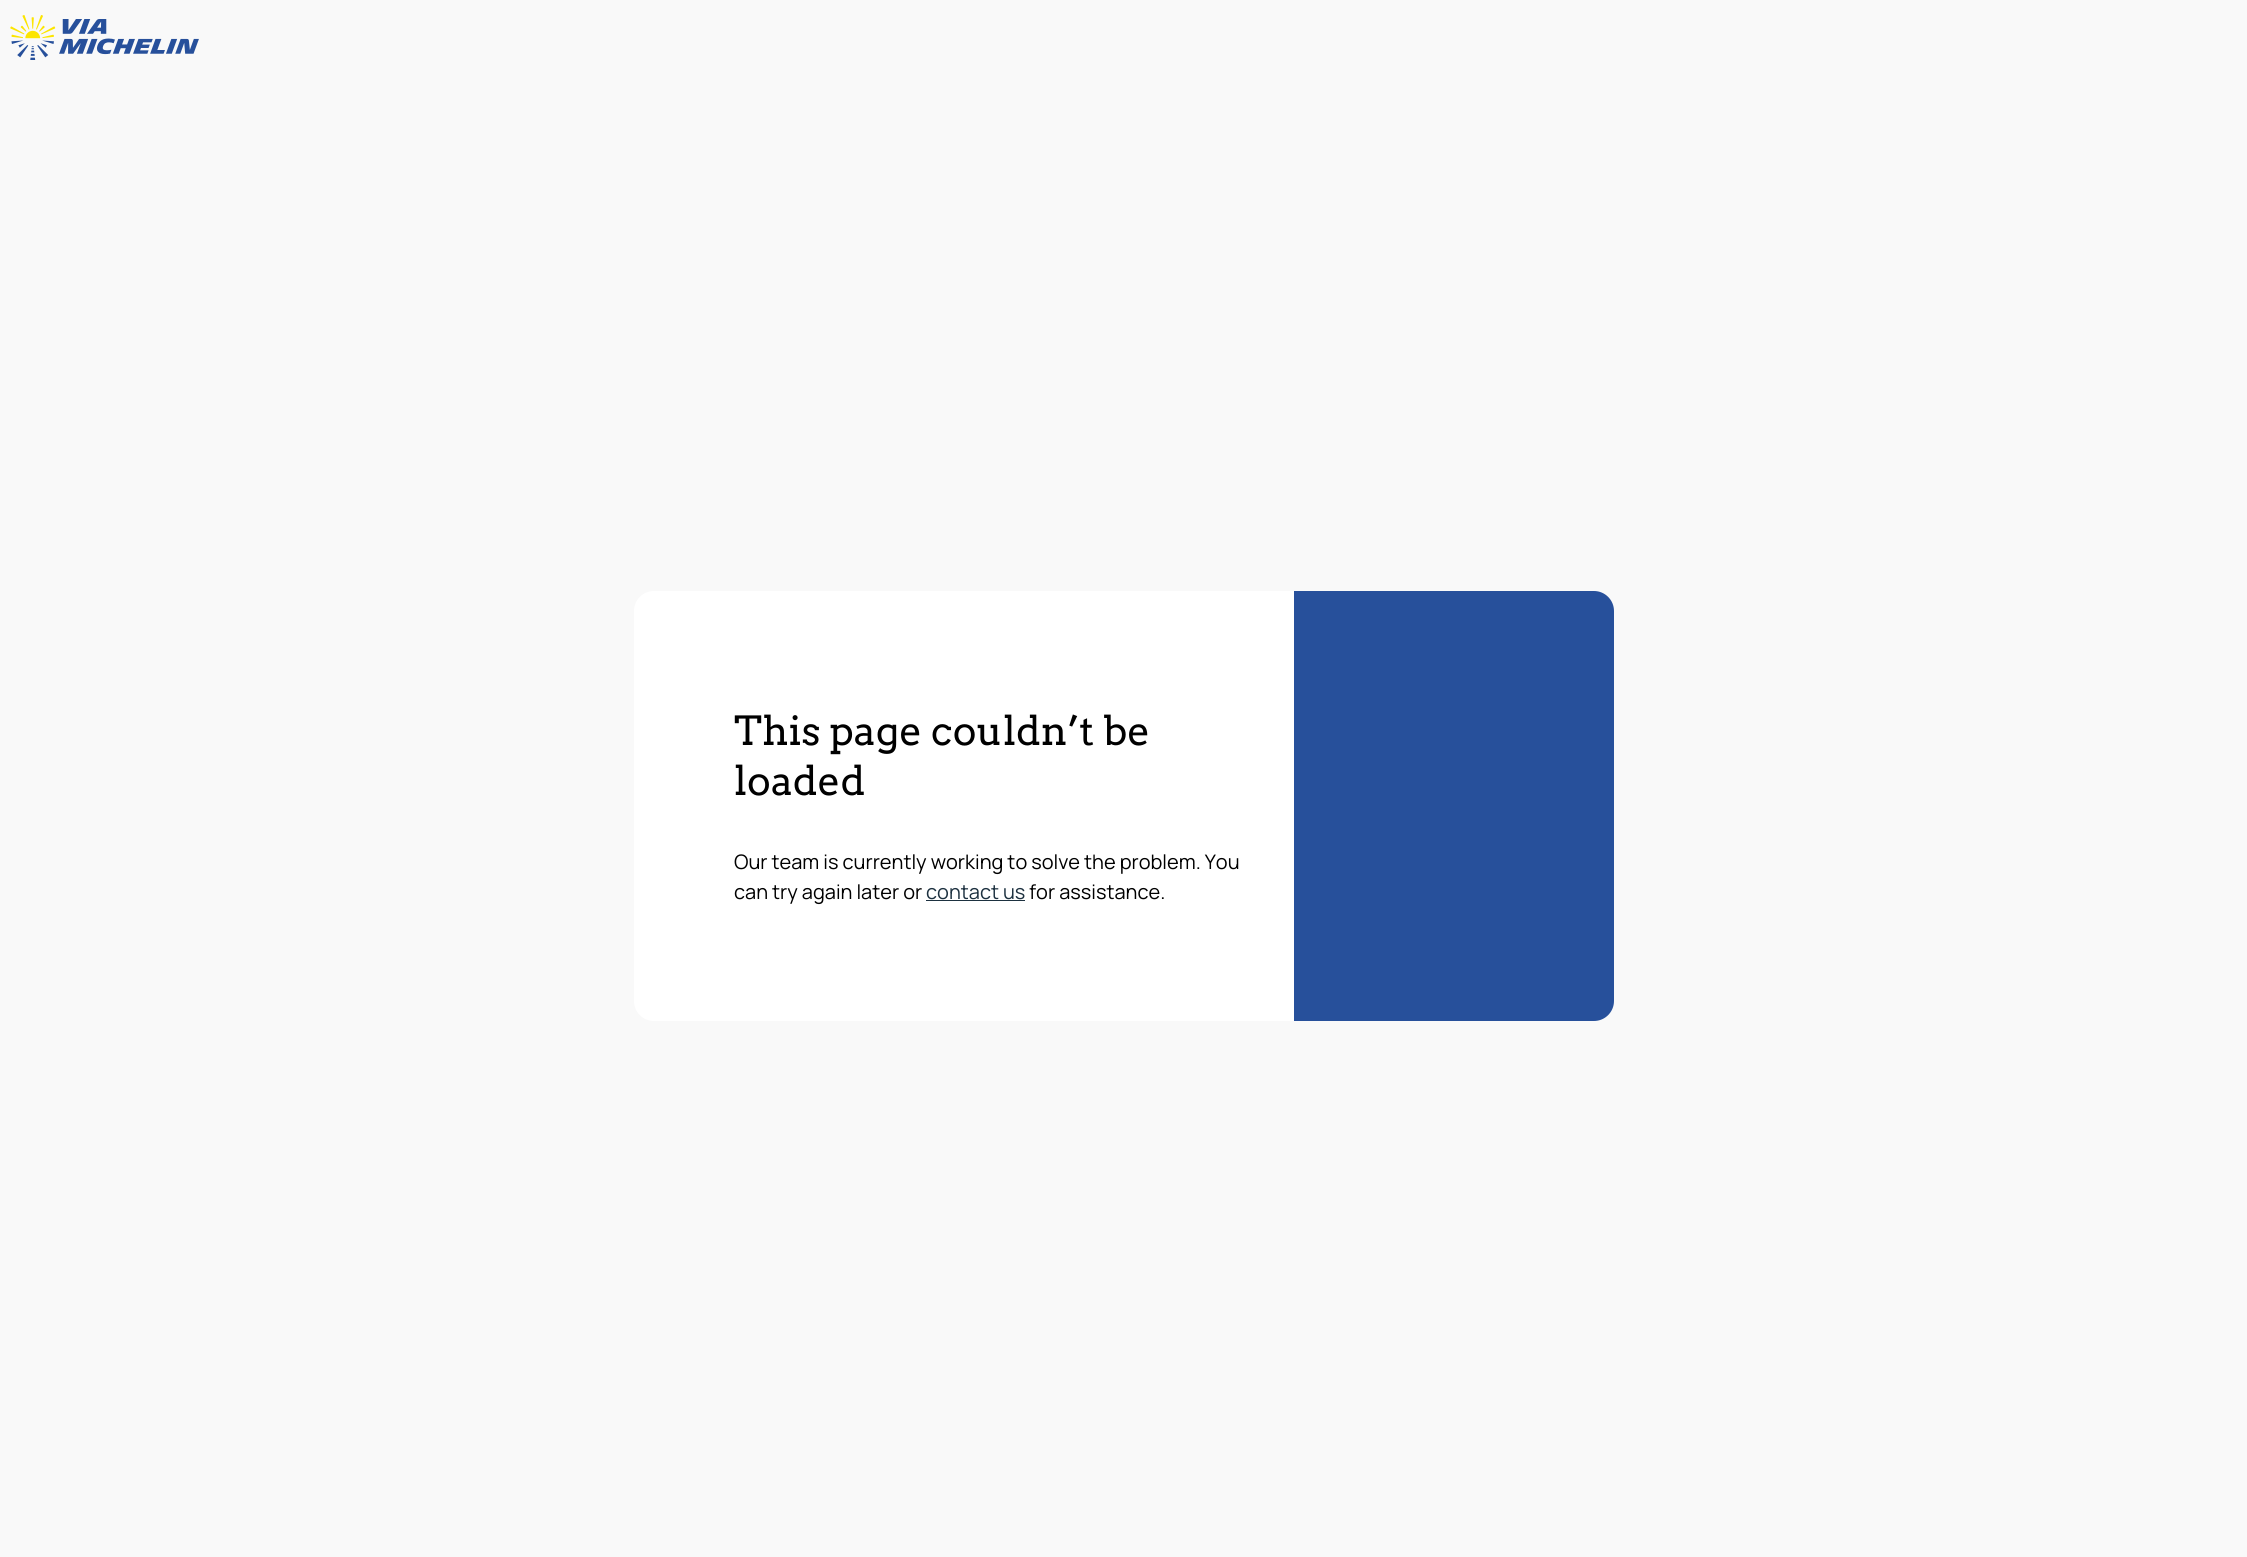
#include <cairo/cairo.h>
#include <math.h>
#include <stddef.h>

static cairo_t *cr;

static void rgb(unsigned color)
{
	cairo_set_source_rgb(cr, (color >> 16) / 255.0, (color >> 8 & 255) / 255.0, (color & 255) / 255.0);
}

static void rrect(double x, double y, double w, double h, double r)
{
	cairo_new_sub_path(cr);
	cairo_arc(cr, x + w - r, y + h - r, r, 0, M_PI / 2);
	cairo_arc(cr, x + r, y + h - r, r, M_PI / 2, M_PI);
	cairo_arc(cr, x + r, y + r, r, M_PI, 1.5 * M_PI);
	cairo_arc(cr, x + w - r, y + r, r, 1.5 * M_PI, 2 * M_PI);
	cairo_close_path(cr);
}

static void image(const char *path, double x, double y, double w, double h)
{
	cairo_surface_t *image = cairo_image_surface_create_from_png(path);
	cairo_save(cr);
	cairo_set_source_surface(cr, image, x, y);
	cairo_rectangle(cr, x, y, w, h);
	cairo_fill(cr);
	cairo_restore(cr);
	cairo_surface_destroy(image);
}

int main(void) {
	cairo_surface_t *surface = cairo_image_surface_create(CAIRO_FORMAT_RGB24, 2247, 1557);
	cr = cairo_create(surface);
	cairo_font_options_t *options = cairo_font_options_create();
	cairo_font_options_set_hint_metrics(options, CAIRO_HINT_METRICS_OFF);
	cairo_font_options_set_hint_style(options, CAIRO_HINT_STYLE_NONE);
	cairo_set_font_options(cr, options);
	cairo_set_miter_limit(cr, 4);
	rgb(0xf9f9f9);
	cairo_paint(cr);
	image("img/1.png", 10, 15, 189, 45);
	rgb(0xffffff);
	rrect(634, 591, 980, 430, 20);
	cairo_fill(cr);
	rgb(0x1d3140);
	cairo_rectangle(cr, 926, 900, 99, 1);
	cairo_fill(cr);
	rgb(0x27509b);
	cairo_new_path(cr);
	cairo_move_to(cr, 1294, 591);
	cairo_line_to(cr, 1594, 591);
	cairo_curve_to(cr, 1605, 591, 1614, 600, 1614, 611);
	cairo_line_to(cr, 1614, 1001);
	cairo_curve_to(cr, 1614, 1012, 1605, 1021, 1594, 1021);
	cairo_line_to(cr, 1294, 1021);
	cairo_close_path(cr);
	cairo_fill(cr);
	cairo_select_font_face(cr, "Arvo", CAIRO_FONT_SLANT_NORMAL, CAIRO_FONT_WEIGHT_NORMAL);
	cairo_set_font_size(cr, 40);
	rgb(0x000000);
	cairo_move_to(cr, 734, 745);
	cairo_show_text(cr, "This page couldn’t be");
	cairo_move_to(cr, 734, 795);
	cairo_show_text(cr, "loaded");
	cairo_select_font_face(cr, "Manrope ExtraLight", CAIRO_FONT_SLANT_NORMAL, CAIRO_FONT_WEIGHT_NORMAL);
	cairo_set_font_size(cr, 20);
	cairo_move_to(cr, 734, 869);
	cairo_show_text(cr, "Our team is currently working to solve the problem. You");
	cairo_move_to(cr, 734, 899);
	cairo_show_text(cr, "can try again later or");
	rgb(0x1d3140);
	cairo_move_to(cr, 926, 899);
	cairo_show_text(cr, "contact us");
	rgb(0x000000);
	cairo_move_to(cr, 1029, 899);
	cairo_show_text(cr, "for assistance.");
	cairo_surface_write_to_png(surface, "page.png");
	cairo_font_options_destroy(options);
	cairo_destroy(cr);
	cairo_surface_destroy(surface);
	return 0;
}
